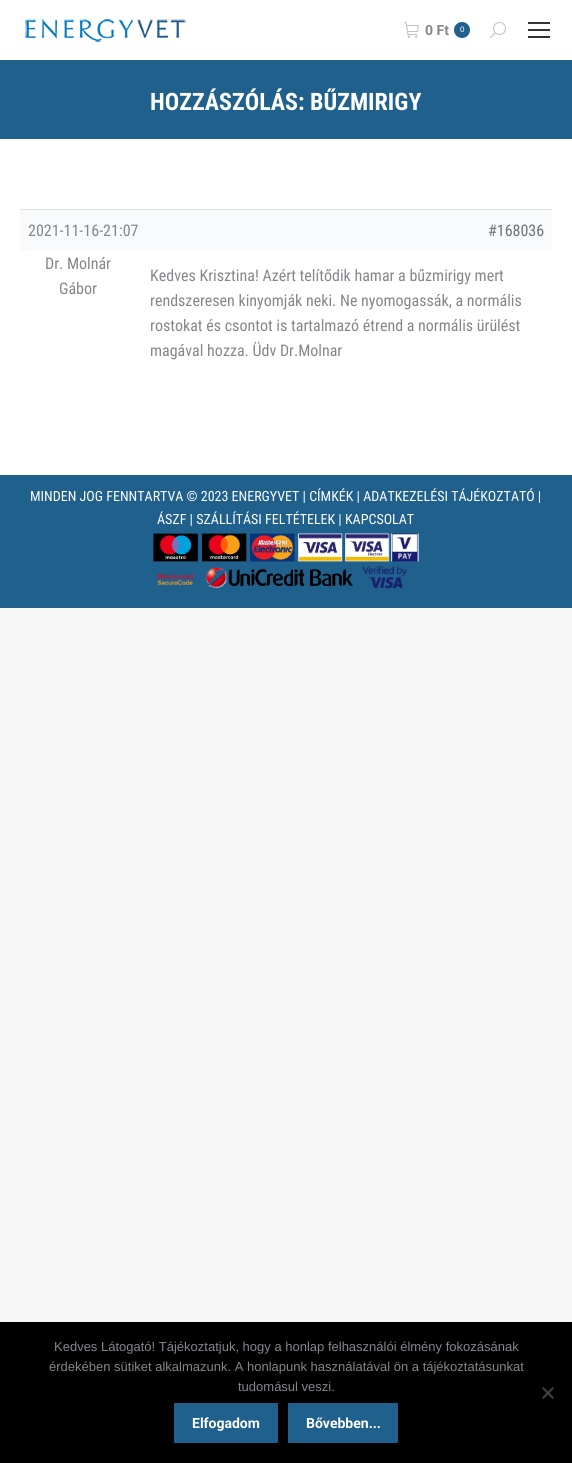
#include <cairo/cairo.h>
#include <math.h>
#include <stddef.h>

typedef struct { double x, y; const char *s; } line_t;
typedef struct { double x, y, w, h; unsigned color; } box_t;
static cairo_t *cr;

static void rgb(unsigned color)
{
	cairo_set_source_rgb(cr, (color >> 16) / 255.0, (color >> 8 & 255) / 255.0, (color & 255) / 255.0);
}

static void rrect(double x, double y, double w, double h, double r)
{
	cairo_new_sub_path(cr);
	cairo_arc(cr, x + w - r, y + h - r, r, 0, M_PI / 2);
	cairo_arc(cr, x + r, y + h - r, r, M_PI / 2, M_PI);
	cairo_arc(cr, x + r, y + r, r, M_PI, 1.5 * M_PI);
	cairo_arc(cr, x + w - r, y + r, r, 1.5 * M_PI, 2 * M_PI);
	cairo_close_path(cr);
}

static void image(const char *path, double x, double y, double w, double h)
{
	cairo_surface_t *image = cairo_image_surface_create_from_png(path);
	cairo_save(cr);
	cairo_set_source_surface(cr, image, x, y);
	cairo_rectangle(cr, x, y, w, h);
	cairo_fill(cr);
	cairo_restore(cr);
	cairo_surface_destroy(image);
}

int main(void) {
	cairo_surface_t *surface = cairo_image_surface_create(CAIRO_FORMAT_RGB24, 572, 1463);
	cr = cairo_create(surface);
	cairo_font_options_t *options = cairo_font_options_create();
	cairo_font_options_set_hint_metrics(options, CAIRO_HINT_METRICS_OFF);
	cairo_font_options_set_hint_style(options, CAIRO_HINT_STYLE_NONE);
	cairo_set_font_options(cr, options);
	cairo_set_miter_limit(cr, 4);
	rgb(0xf7f7f7);
	cairo_paint(cr);
	rgb(0xffffff);
	cairo_rectangle(cr, 0, 0, 572, 475);
	cairo_fill(cr);
	image("img/1.png", 25, 19, 161, 23);
	image("img/2.png", 404, 22, 15, 16);
	rgb(0x1f608c);
	cairo_arc(cr, 462, 30, 8, 0, 2 * M_PI);
	cairo_fill(cr);
	image("img/3.png", 490, 22, 16, 16);
	{
		static const box_t items[] = {
			{528, 22, 22, 2, 0x333333},
			{528, 29, 22, 2, 0x333333},
			{528, 36, 22, 2, 0x333333},
			{0, 60, 572, 79, 0x1f608c},
			{20, 210, 532, 41, 0xf8fafc},
			{20, 209, 532, 1, 0xe0e2e4},
			{0, 475, 572, 133, 0x1f608c},
		};
		for (size_t i = 0; i < sizeof items / sizeof *items; i++) {
			rgb(items[i].color);
			cairo_rectangle(cr, items[i].x, items[i].y, items[i].w, items[i].h);
			cairo_fill(cr);
		}
	}
	image("img/4.png", 153, 533, 266, 56);
	rgb(0x000000);
	cairo_rectangle(cr, 0, 1322, 572, 141);
	cairo_fill(cr);
	rgb(0x404040);
	cairo_new_path(cr);
	cairo_move_to(cr, 552.5, 1387);
	cairo_line_to(cr, 554, 1388.5);
	cairo_line_to(cr, 543.5, 1399);
	cairo_line_to(cr, 542, 1397.5);
	cairo_close_path(cr);
	cairo_fill(cr);
	cairo_new_path(cr);
	cairo_move_to(cr, 542, 1388.5);
	cairo_line_to(cr, 543.5, 1387);
	cairo_line_to(cr, 554, 1397.5);
	cairo_line_to(cr, 552.5, 1399);
	cairo_close_path(cr);
	cairo_fill(cr);
	rgb(0x1f608c);
	rrect(174, 1403, 104, 40, 1);
	cairo_fill(cr);
	rrect(288, 1403, 110, 40, 1);
	cairo_fill(cr);
	cairo_select_font_face(cr, "Roboto", CAIRO_FONT_SLANT_NORMAL, CAIRO_FONT_WEIGHT_BOLD);
	cairo_set_font_size(cr, 14);
	rgb(0x85868c);
	cairo_move_to(cr, 425, 35);
	cairo_show_text(cr, "0 Ft");
	cairo_select_font_face(cr, "Liberation Sans", CAIRO_FONT_SLANT_NORMAL, CAIRO_FONT_WEIGHT_NORMAL);
	cairo_set_font_size(cr, 8);
	rgb(0xffffff);
	cairo_move_to(cr, 460, 32);
	cairo_show_text(cr, "0");
	cairo_select_font_face(cr, "Roboto Condensed", CAIRO_FONT_SLANT_NORMAL, CAIRO_FONT_WEIGHT_BOLD);
	cairo_set_font_size(cr, 24);
	cairo_move_to(cr, 150, 110);
	cairo_show_text(cr, "HOZZÁSZÓLÁS: BŰZMIRIGY");
	cairo_select_font_face(cr, "Roboto Condensed", CAIRO_FONT_SLANT_NORMAL, CAIRO_FONT_WEIGHT_NORMAL);
	cairo_set_font_size(cr, 16);
	rgb(0x85868c);
	cairo_move_to(cr, 28, 236);
	cairo_show_text(cr, "2021-11-16-21:07");
	rgb(0x707070);
	cairo_move_to(cr, 488, 236);
	cairo_show_text(cr, "#168036");
	rgb(0x85868c);
	{
		static const line_t items[] = {
			{45, 269, "Dr. Molnár"},
			{59, 294, "Gábor"},
			{150, 281, "Kedves Krisztina! Azért telítődik hamar a bűzmirigy mert"},
			{150, 306, "rendszeresen kinyomják neki. Ne nyomogassák, a normális"},
			{150, 331, "rostokat és csontot is tartalmazó étrend a normális ürülést"},
			{150, 356, "magával hozza. Üdv Dr.Molnar"},
		};
		for (size_t i = 0; i < sizeof items / sizeof *items; i++) {
			cairo_move_to(cr, items[i].x, items[i].y);
			cairo_show_text(cr, items[i].s);
		}
	}
	cairo_set_font_size(cr, 14);
	rgb(0xffffff);
	cairo_move_to(cr, 30, 501);
	cairo_show_text(cr, "MINDEN JOG FENNTARTVA © 2023 ENERGYVET | CÍMKÉK | ADATKEZELÉSI TÁJÉKOZTATÓ |");
	cairo_move_to(cr, 157, 524);
	cairo_show_text(cr, "ÁSZF | SZÁLLÍTÁSI FELTÉTELEK | KAPCSOLAT");
	cairo_select_font_face(cr, "Liberation Sans", CAIRO_FONT_SLANT_NORMAL, CAIRO_FONT_WEIGHT_NORMAL);
	cairo_set_font_size(cr, 13);
	rgb(0x85868c);
	{
		static const line_t items[] = {
			{54, 1351, "Kedves Látogató! Tájékoztatjuk, hogy a honlap felhasználói élmény fokozásának"},
			{49, 1371, "érdekében sütiket alkalmazunk. A honlapunk használatával ön a tájékoztatásunkat"},
			{238, 1391, "tudomásul veszi."},
		};
		for (size_t i = 0; i < sizeof items / sizeof *items; i++) {
			cairo_move_to(cr, items[i].x, items[i].y);
			cairo_show_text(cr, items[i].s);
		}
	}
	cairo_select_font_face(cr, "Roboto", CAIRO_FONT_SLANT_NORMAL, CAIRO_FONT_WEIGHT_BOLD);
	cairo_set_font_size(cr, 14);
	rgb(0xffffff);
	cairo_move_to(cr, 192, 1428);
	cairo_show_text(cr, "Elfogadom");
	cairo_move_to(cr, 306, 1428);
	cairo_show_text(cr, "Bővebben...");
	cairo_surface_write_to_png(surface, "page.png");
	cairo_font_options_destroy(options);
	cairo_destroy(cr);
	cairo_surface_destroy(surface);
	return 0;
}
